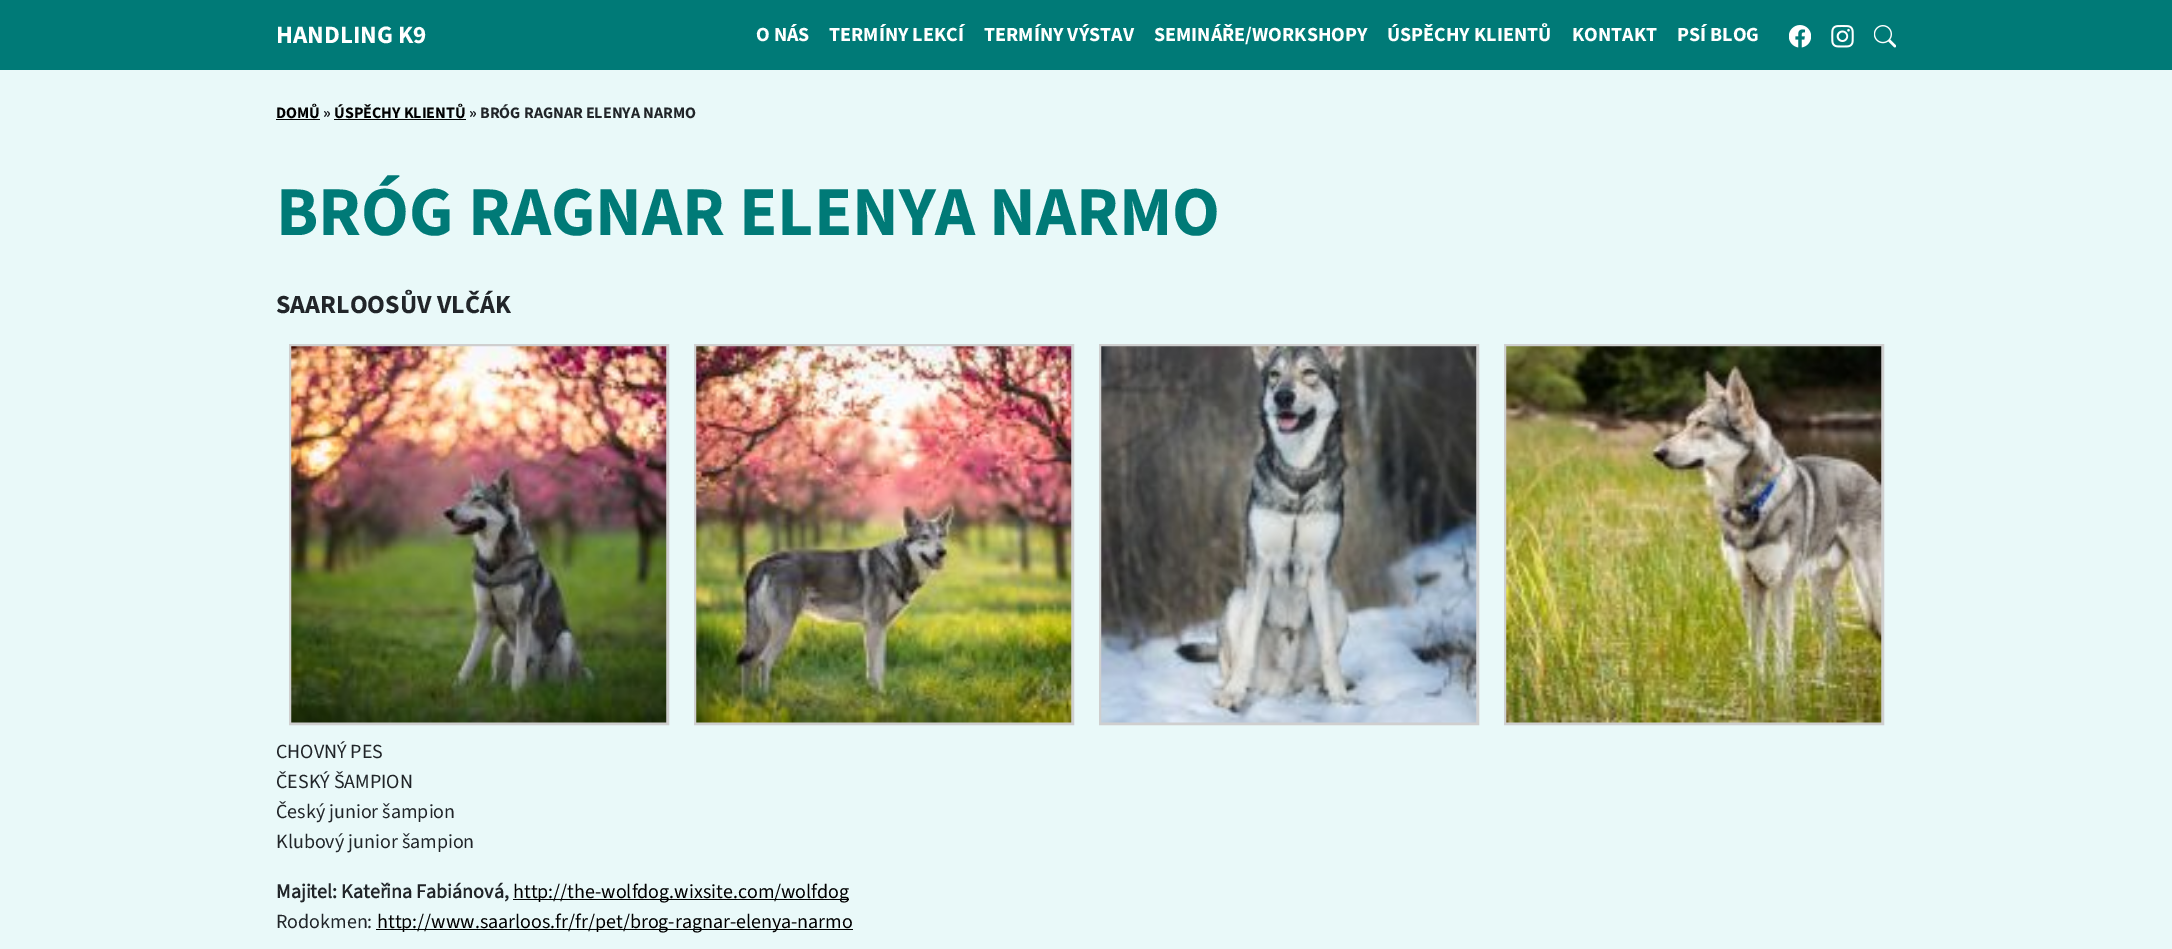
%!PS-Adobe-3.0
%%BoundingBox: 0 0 2172 949
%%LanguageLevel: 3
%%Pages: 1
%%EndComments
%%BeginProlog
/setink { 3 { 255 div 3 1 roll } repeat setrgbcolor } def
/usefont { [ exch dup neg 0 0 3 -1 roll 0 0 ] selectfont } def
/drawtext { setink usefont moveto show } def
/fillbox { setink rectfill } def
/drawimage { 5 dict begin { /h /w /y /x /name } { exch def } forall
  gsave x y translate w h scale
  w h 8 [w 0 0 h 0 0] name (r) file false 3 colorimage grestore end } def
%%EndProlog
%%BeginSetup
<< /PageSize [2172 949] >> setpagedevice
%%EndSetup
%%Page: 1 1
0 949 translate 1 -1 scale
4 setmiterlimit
0 0 2172 949 233 249 249 fillbox
0 0 2172 70 0 122 119 fillbox
(HANDLING K9) 276 43 /SourceSans3-Bold 25 255 255 255 drawtext
(O NÁS) 756 41 /SourceSans3-Bold 20 255 255 255 drawtext
(TERMÍNY LEKCÍ) 829 41 /SourceSans3-Bold 20 255 255 255 drawtext
(TERMÍNY VÝSTAV) 984 41 /SourceSans3-Bold 20 255 255 255 drawtext
(SEMINÁŘE/WORKSHOPY) 1154 41 /SourceSans3-Bold 20 255 255 255 drawtext
(ÚSPĚCHY KLIENTŮ) 1387 41 /SourceSans3-Bold 20 255 255 255 drawtext
(KONTAKT) 1572 41 /SourceSans3-Bold 20 255 255 255 drawtext
(PSÍ BLOG) 1677 41 /SourceSans3-Bold 20 255 255 255 drawtext
(assets/img1.rgb) 1789 25 22 23 drawimage
(assets/img2.rgb) 1831 25 23 23 drawimage
(assets/img3.rgb) 1874 25 22 23 drawimage
(DOMŮ) 276 118 /SourceSans3-Bold 16 0 0 0 drawtext
(») 323 118 /SourceSans3-Bold 16 33 37 41 drawtext
276 119 44 1 0 0 0 fillbox
334 119 132 1 0 0 0 fillbox
(ÚSPĚCHY KLIENTŮ) 334 118 /SourceSans3-Bold 16 0 0 0 drawtext
(» BRÓG RAGNAR ELENYA NARMO) 469 118 /SourceSans3-Bold 16 33 37 41 drawtext
(BRÓG RAGNAR ELENYA NARMO) 276 235 /SourceSans3-Bold 70 0 122 119 drawtext
(SAARLOOSŮV VLČÁK) 276 313 /SourceSans3-Bold 26 33 37 41 drawtext
207 207 207 setink
3 setlinewidth
290.5 345.5 377 378 rectstroke
(assets/img4.rgb) 291 346 376 377 drawimage
695.5 345.5 377 378 rectstroke
(assets/img5.rgb) 696 346 376 377 drawimage
1100.5 345.5 377 378 rectstroke
(assets/img6.rgb) 1101 346 376 377 drawimage
1505.5 345.5 377 378 rectstroke
(assets/img7.rgb) 1506 346 376 377 drawimage
(CHOVNÝ PES) 276 758 /SourceSans3-Regular 20 33 37 41 drawtext
(ČESKÝ ŠAMPION) 276 788 /SourceSans3-Regular 20 33 37 41 drawtext
(Český junior šampion) 276 818 /SourceSans3-Regular 20 33 37 41 drawtext
(Klubový junior šampion) 276 848 /SourceSans3-Regular 20 33 37 41 drawtext
(Majitel: Kateřina Fabiánová,) 276 898 /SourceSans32-Bold 20 33 37 41 drawtext
513 899 336 1 0 0 0 fillbox
(http://the-wolfdog.wixsite.com/wolfdog) 513 898 /SourceSans3-Regular 20 0 0 0 drawtext
(Rodokmen:) 276 928 /SourceSans3-Regular 20 33 37 41 drawtext
376 929 477 1 0 0 0 fillbox
(http://www.saarloos.fr/fr/pet/brog-ragnar-elenya-narmo) 377 928 /SourceSans3-Regular 20 0 0 0 drawtext
showpage
%%EOF
